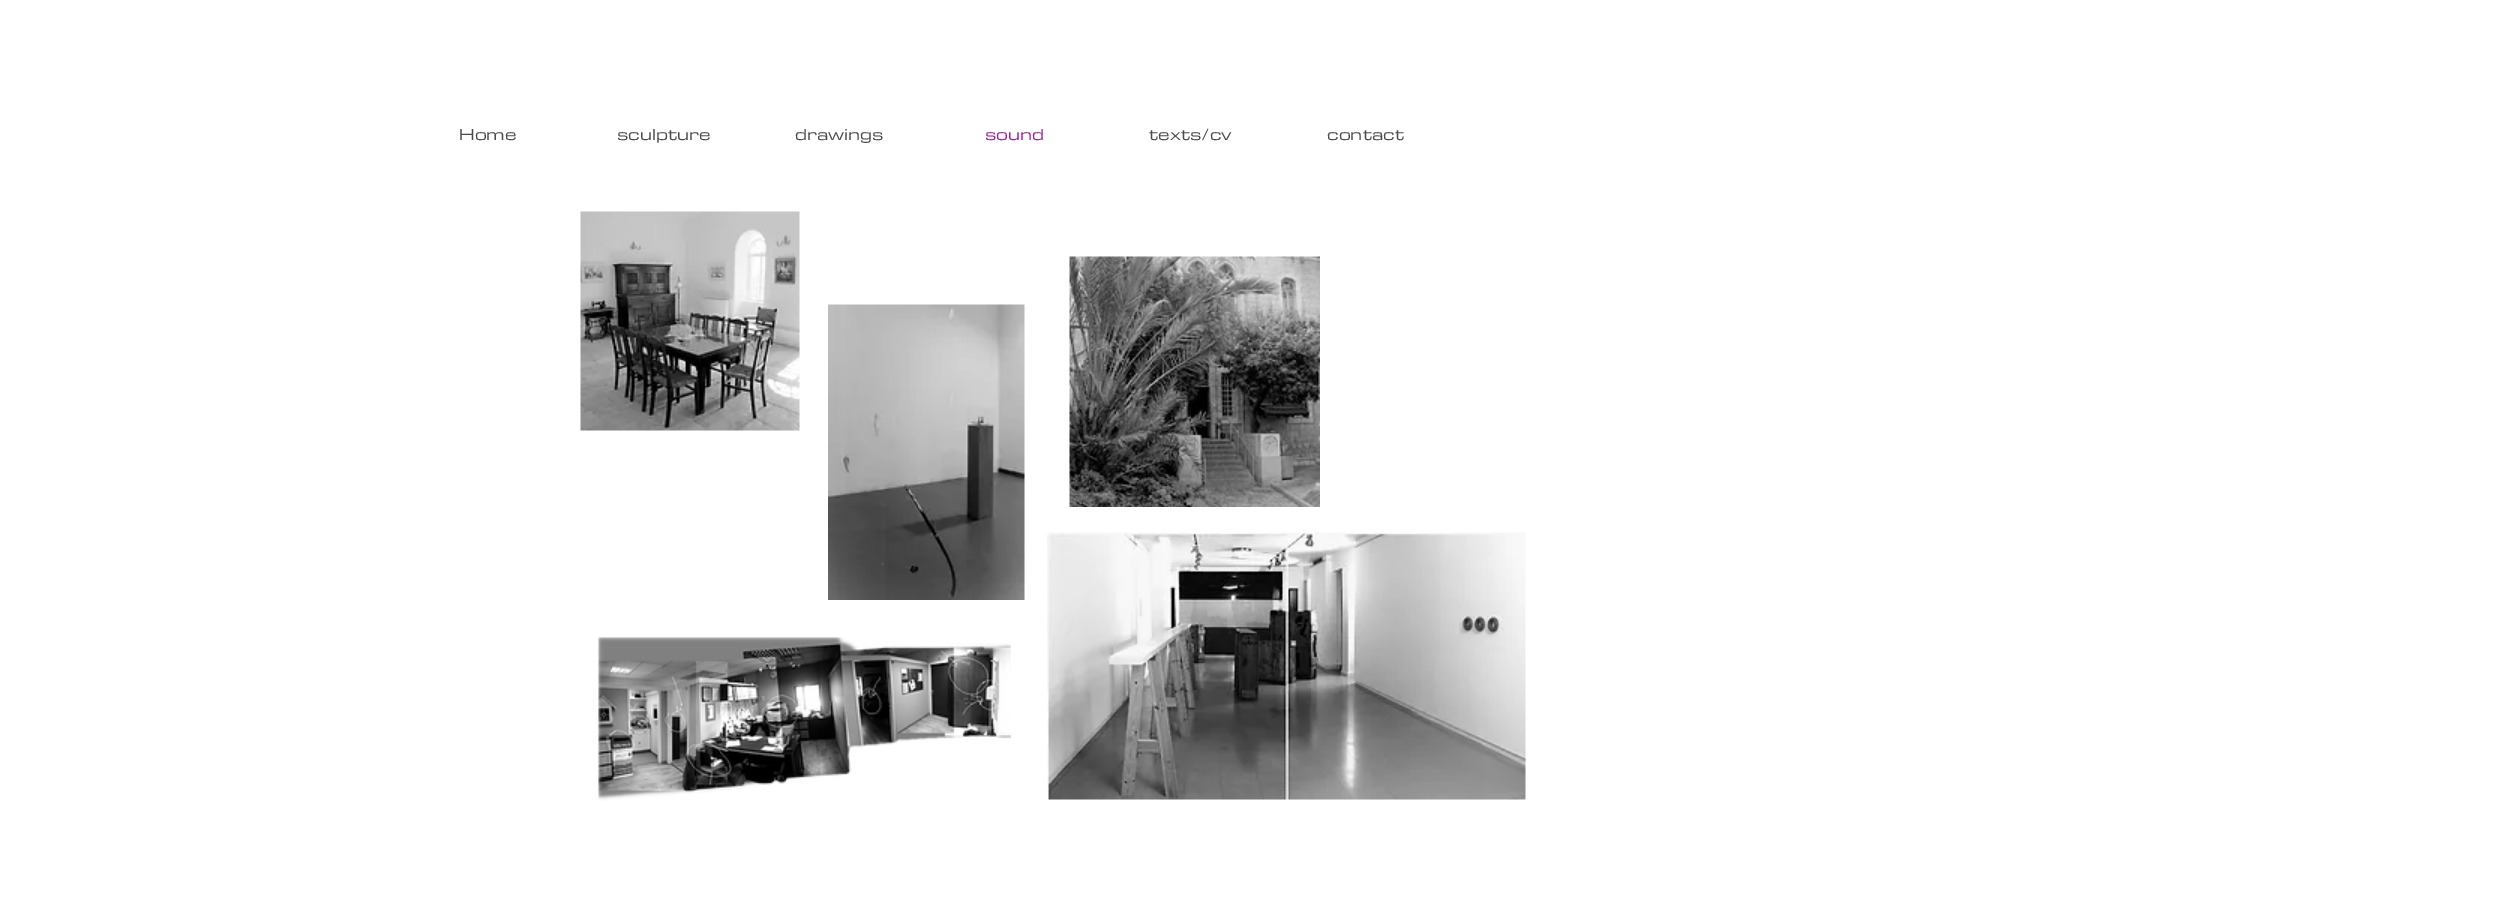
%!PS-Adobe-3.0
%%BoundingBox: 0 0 2505 901
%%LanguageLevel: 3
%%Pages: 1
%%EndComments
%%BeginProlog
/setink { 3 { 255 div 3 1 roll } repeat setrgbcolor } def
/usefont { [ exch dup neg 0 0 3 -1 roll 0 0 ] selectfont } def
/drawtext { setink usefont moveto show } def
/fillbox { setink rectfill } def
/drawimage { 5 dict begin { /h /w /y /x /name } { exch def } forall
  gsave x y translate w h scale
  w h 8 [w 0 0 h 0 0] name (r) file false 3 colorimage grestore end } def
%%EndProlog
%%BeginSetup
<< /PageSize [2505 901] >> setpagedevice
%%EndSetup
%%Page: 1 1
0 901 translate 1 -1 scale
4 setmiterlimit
0 0 2505 901 255 255 255 fillbox
(Home) 459 140 /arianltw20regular-Regular 19.5 74 74 74 drawtext
(sculpture) 617 140 /arianltw20regular-Regular 19.5 74 74 74 drawtext
(drawings) 795 140 /arianltw20regular-Regular 19.5 74 74 74 drawtext
(sound) 985 140 /arianltw20regular-Regular 19.5 163 26 163 drawtext
(texts/cv) 1149 140 /arianltw20regular-Regular 19.5 74 74 74 drawtext
(contact) 1327 140 /arianltw20regular-Regular 19.5 74 74 74 drawtext
(assets/img1.rgb) 580 211 220 220 drawimage
(assets/img2.rgb) 828 304 197 296 drawimage
(assets/img3.rgb) 1069 256 251 251 drawimage
(assets/img4.rgb) 598 637 413 164 drawimage
(assets/img5.rgb) 1047 532 479 268 drawimage
showpage
%%EOF
